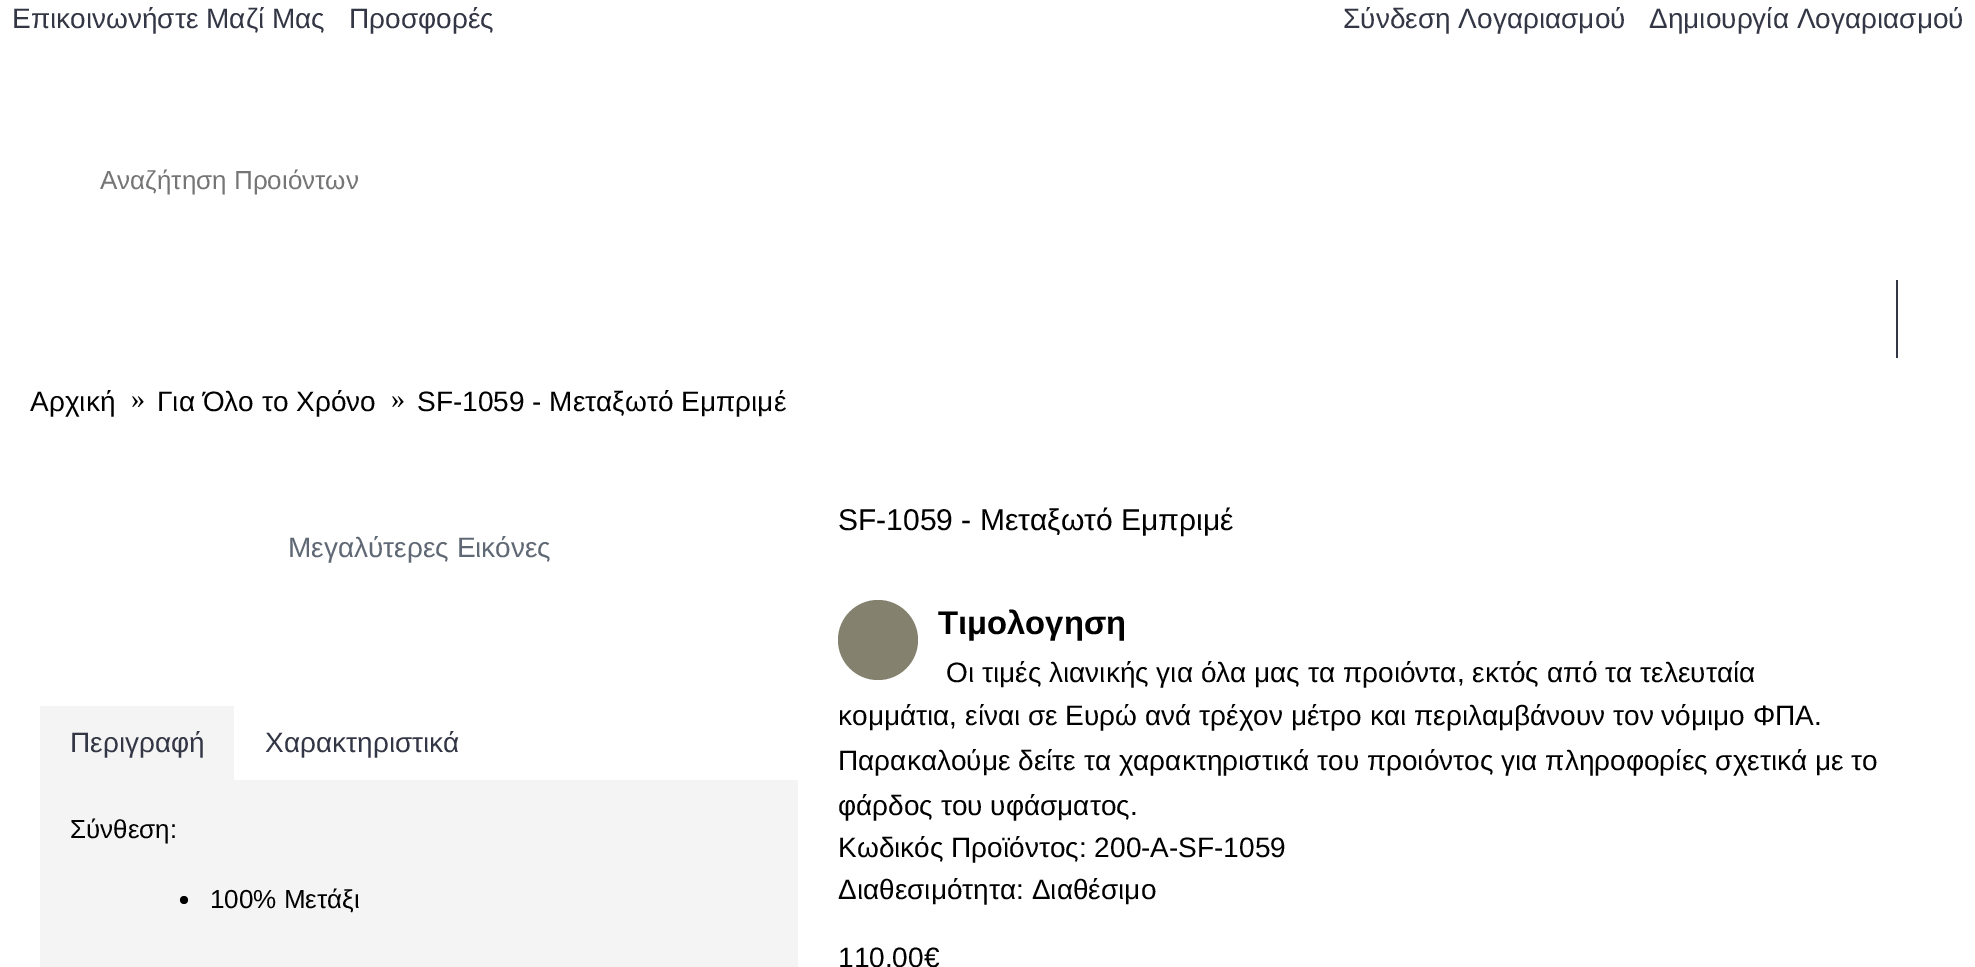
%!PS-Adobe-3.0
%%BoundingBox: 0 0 1975 967
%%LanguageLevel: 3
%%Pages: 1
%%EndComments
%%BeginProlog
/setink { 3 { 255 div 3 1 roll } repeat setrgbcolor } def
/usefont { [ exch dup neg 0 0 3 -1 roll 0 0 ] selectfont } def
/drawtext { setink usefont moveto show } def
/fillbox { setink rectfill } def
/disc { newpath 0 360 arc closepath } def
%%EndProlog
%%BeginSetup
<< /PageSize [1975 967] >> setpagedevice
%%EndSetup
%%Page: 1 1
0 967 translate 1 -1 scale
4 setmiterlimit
0 0 1975 967 255 255 255 fillbox
(Επικοινωνήστε Μαζί Μας) 12 28 /LiberationSans-Regular 28 51 55 69 drawtext
(Προσφορές) 349 28 /LiberationSans-Regular 28 51 55 69 drawtext
(Σύνδεση Λογαριασμού) 1343 28 /LiberationSans-Regular 28 51 55 69 drawtext
(Δημιουργία Λογαριασμού) 1649 28 /LiberationSans-Regular 28 51 55 69 drawtext
(Αναζήτηση Προιόντων) 100 189 /LiberationSans-Regular 26 117 117 117 drawtext
1896 280 2 78 51 55 69 fillbox
(Αρχική) 30 411 /LiberationSans-Regular 28 0 0 0 drawtext
(») 131 408 /LiberationSerif-Regular 28 0 0 0 drawtext
(Για Όλο το Χρόνο) 157 411 /LiberationSans-Regular 28 0 0 0 drawtext
(») 391 408 /LiberationSerif-Regular 28 0 0 0 drawtext
(SF-1059 - Μεταξωτό Εμπριμέ) 417 411 /LiberationSans-Regular 28 0 0 0 drawtext
(Μεγαλύτερες Εικόνες) 288 557 /LiberationSans-Regular 28 95 104 116 drawtext
40 706 194 74 244 244 244 fillbox
(Περιγραφή) 70 752 /LiberationSans-Regular 28 51 55 69 drawtext
(Χαρακτηριστικά) 265 752 /LiberationSans-Regular 28 51 55 69 drawtext
40 780 758 187 244 244 244 fillbox
(Σύνθεση:) 70 838 /LiberationSans-Regular 26 0 0 0 drawtext
184 900 4 disc fill
(100% Μετάξι) 210 908 /LiberationSans-Regular 26 0 0 0 drawtext
(SF-1059 - Μεταξωτό Εμπριμέ) 838 530 /LiberationSans-Regular 30 0 0 0 drawtext
132 130 111 setink
878 640 40 disc fill
(Τιμολογηση) 938 634 /LiberationSans-Bold 32.75 0 0 0 drawtext
(Οι τιμές λιανικής για όλα μας τα προιόντα, εκτός από τα τελευταία) 946 682 /LiberationSans-Regular 28 0 0 0 drawtext
(κομμάτια, είναι σε Ευρώ ανά τρέχον μέτρο και περιλαμβάνουν τον νόμιμο ΦΠΑ.) 838 725 /LiberationSans-Regular 28 0 0 0 drawtext
(Παρακαλούμε δείτε τα χαρακτηριστικά του προιόντος για πληροφορίες σχετικά με το) 838 770 /LiberationSans-Regular 28 0 0 0 drawtext
(φάρδος του υφάσματος.) 838 815 /LiberationSans-Regular 28 0 0 0 drawtext
(Κωδικός Προϊόντος: 200-A-SF-1059) 838 857 /LiberationSans-Regular 28 0 0 0 drawtext
(Διαθεσιμότητα: Διαθέσιμο) 838 899 /LiberationSans-Regular 28 0 0 0 drawtext
(110,00€) 838 967 /LiberationSans-Regular 28 0 0 0 drawtext
showpage
%%EOF
